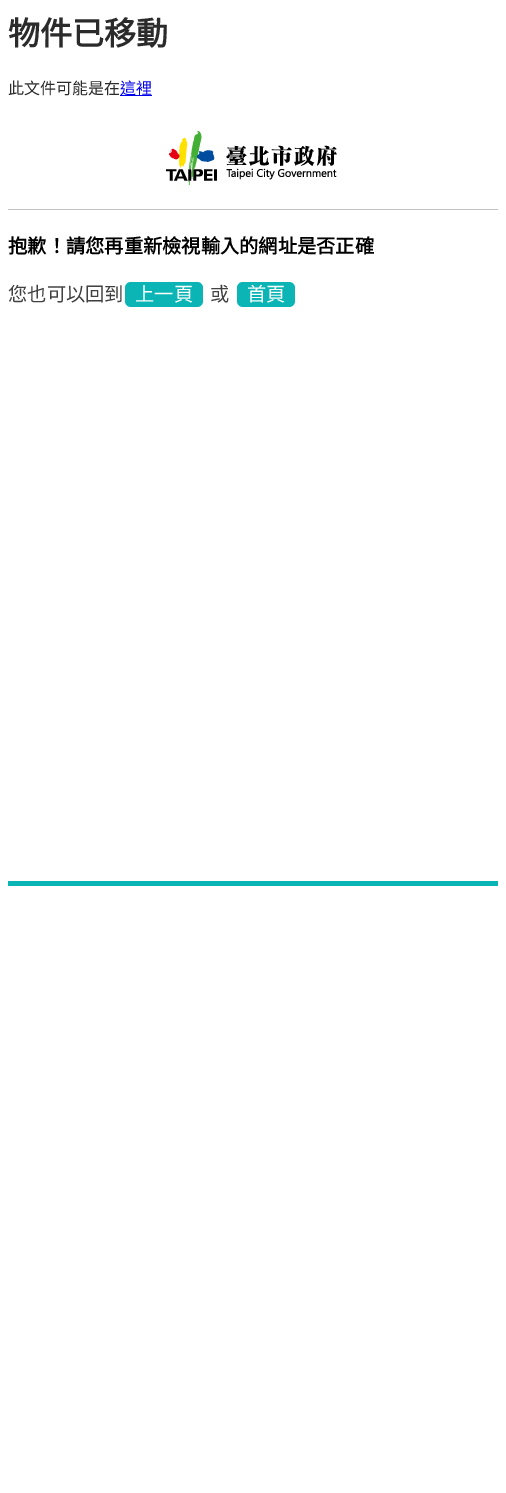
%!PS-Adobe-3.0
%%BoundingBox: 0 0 506 1493
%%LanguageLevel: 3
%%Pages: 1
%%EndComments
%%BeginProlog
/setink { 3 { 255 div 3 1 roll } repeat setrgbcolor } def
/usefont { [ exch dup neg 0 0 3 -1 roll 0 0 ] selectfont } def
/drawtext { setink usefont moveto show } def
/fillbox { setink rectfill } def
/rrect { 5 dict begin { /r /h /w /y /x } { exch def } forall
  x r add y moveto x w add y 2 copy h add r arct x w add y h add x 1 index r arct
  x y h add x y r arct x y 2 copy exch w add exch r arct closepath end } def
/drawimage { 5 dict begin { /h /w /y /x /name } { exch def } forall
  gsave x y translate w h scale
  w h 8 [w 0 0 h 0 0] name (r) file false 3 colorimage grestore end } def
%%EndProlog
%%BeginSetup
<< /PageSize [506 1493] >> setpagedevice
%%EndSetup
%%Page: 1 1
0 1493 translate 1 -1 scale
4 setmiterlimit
0 0 506 1493 255 255 255 fillbox
(物件已移動) 8 45 /NotoSansCJKTC-Bold 32 43 43 43 drawtext
(此文件可能是在) 8 94 /NotoSansCJKTC-Regular 16 43 43 43 drawtext
120 95 32 1 0 0 238 fillbox
(這裡) 120 94 /NotoSansCJKTC-Regular 16 0 0 238 drawtext
8 881 490 5 12 181 181 fillbox
8 209 490 1 193 193 193 fillbox
(assets/img1.rgb) 166 131 171 55 drawimage
(抱歉！請您再重新檢視輸入的網址是否正確) 8 253 /NotoSansCJKTC-Bold 19.25 0 0 0 drawtext
(您也可以回到) 8 301 /NotoSansCJKTC-Regular 19.25 65 65 65 drawtext
12 181 181 setink
125 282 78 25 6 rrect fill
(上一頁) 135 301 /NotoSansCJKTC-Regular 19.25 255 255 255 drawtext
(或) 210 301 /NotoSansCJKTC-Regular 19.25 65 65 65 drawtext
12 181 181 setink
237 282 58 25 6 rrect fill
(首頁) 247 301 /NotoSansCJKTC-Regular 19.25 255 255 255 drawtext
showpage
%%EOF
